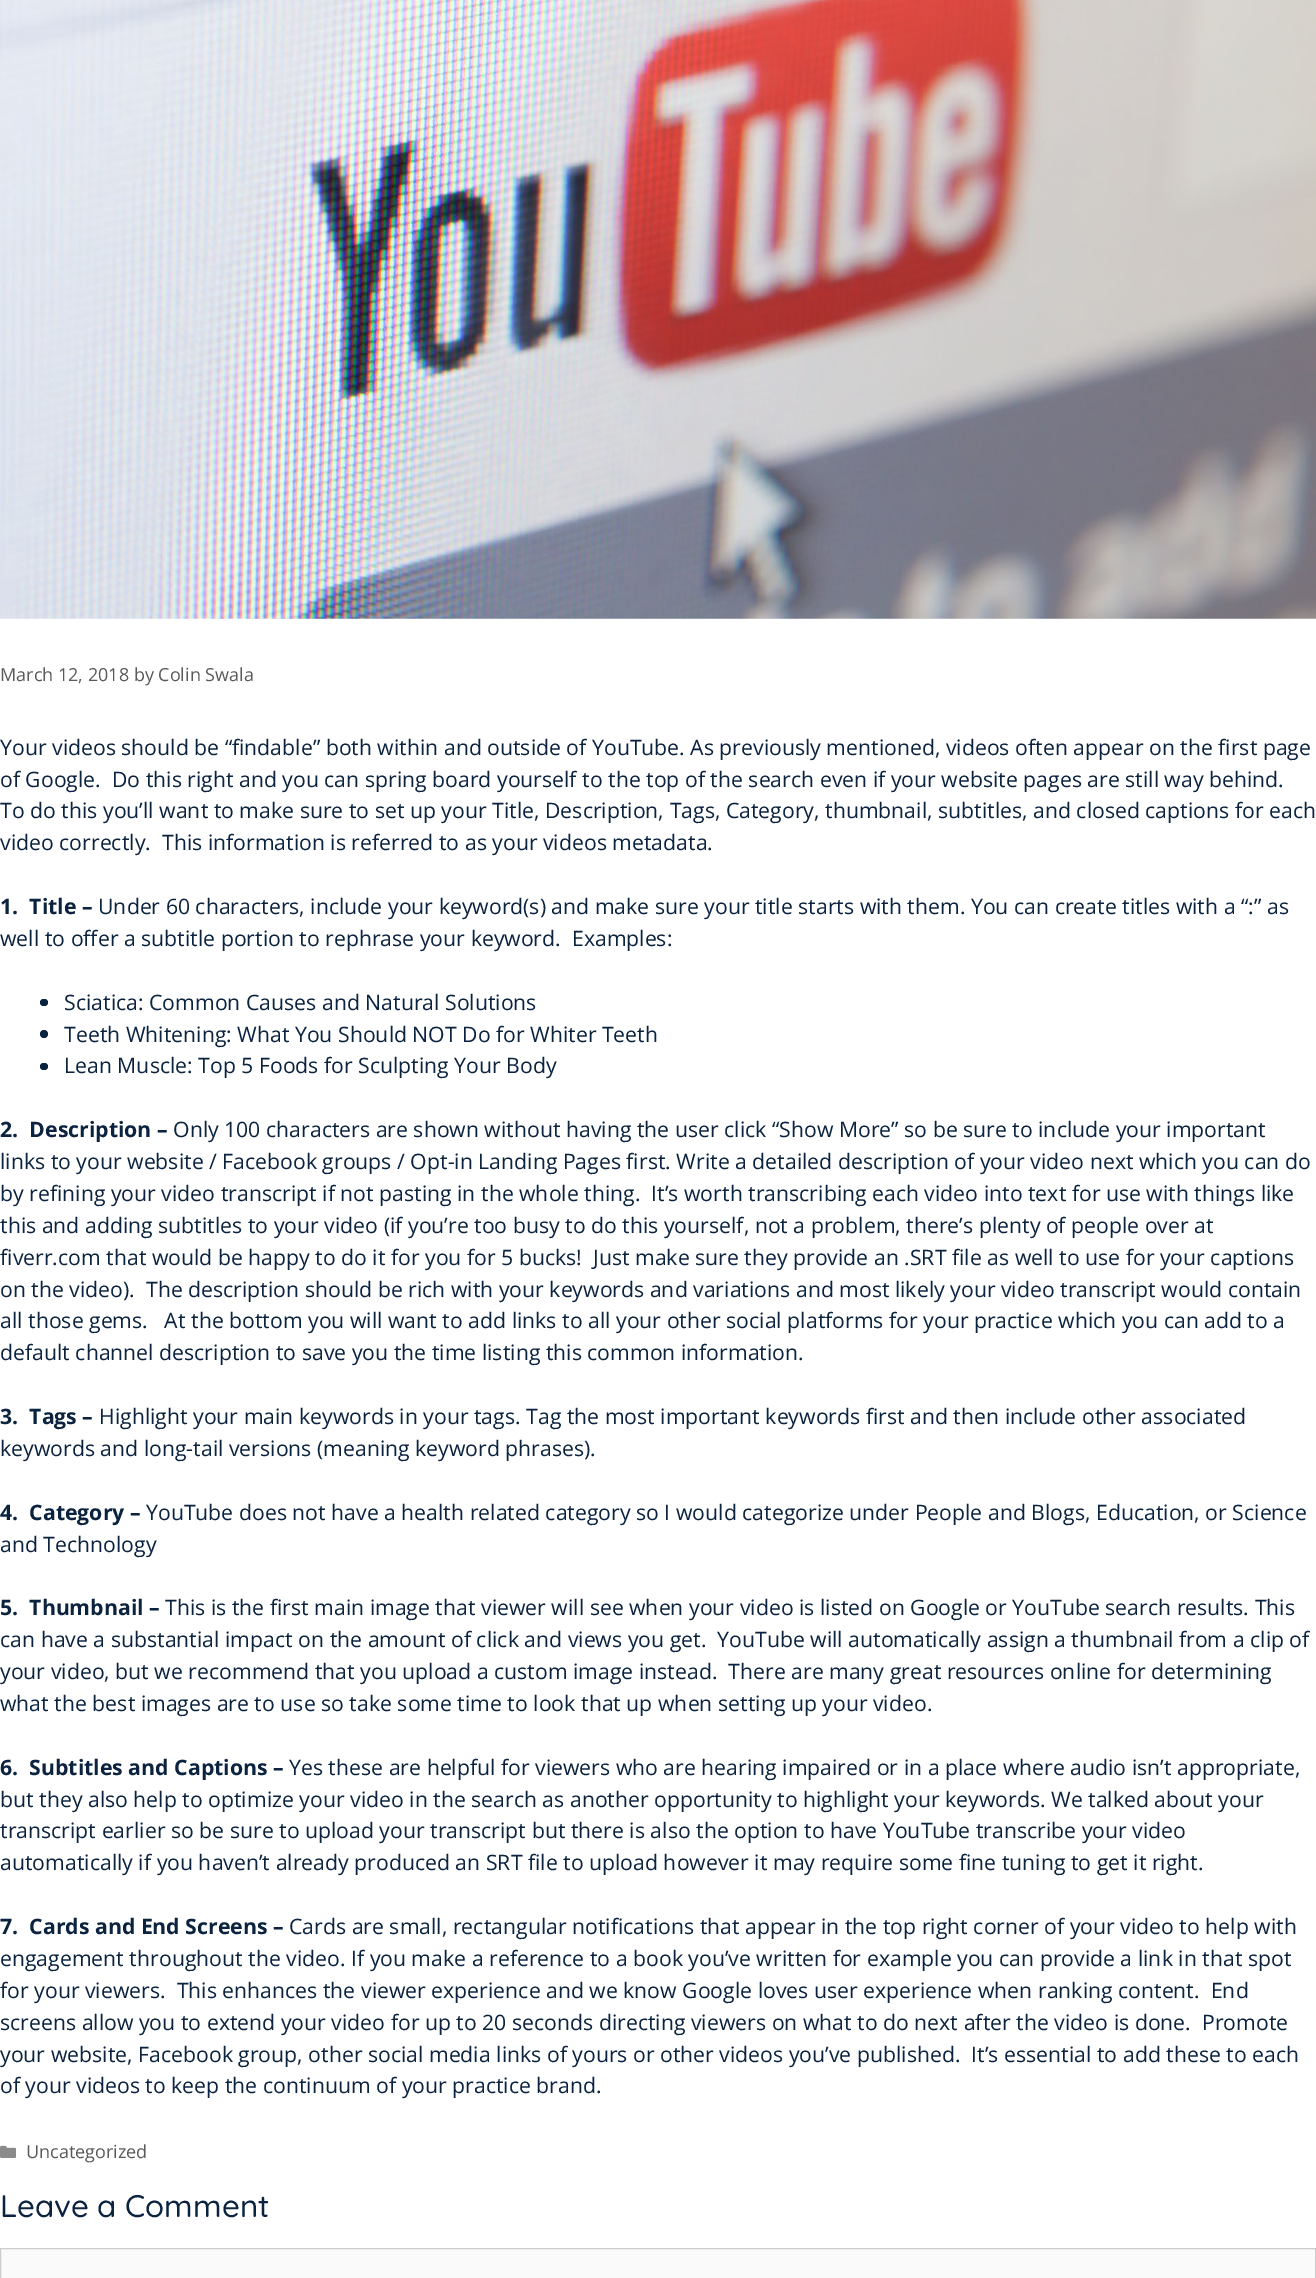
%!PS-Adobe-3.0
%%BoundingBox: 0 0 1316 2278
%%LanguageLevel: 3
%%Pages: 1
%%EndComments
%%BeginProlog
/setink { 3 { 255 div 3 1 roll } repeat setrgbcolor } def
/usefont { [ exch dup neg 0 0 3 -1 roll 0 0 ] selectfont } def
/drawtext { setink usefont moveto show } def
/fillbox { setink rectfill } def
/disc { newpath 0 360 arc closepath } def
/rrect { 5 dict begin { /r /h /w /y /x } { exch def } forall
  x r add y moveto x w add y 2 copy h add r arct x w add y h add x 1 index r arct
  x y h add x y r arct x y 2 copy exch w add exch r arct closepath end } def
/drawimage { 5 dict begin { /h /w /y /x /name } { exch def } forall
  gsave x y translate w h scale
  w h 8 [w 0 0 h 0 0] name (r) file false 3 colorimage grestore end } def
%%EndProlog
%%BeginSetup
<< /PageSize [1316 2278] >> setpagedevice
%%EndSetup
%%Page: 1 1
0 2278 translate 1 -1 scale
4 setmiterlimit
0 0 1316 2278 255 255 255 fillbox
(assets/img1.rgb) 0 0 1316 619 drawimage
(March 12, 2018 by Colin Swala) 0 681 /OpenSans-Regular 18 89 89 89 drawtext
(Your videos should be “findable” both within and outside of YouTube. As previously mentioned, videos often appear on the first page) 0 755 /OpenSans-Regular 21.25 11 35 63 drawtext
(of Google.  Do this right and you can spring board yourself to the top of the search even if your website pages are still way behind.) 0 787 /OpenSans-Regular 21.25 11 35 63 drawtext
(To do this you’ll want to make sure to set up your Title, Description, Tags, Category, thumbnail, subtitles, and closed captions for each) 0 818 /OpenSans-Regular 21.25 11 35 63 drawtext
(video correctly.  This information is referred to as your videos metadata.) 0 850 /OpenSans-Regular 21.25 11 35 63 drawtext
(1.  Title –) 0 914 /OpenSans-Bold 21.25 11 35 63 drawtext
(Under 60 characters, include your keyword\(s\) and make sure your title starts with them. You can create titles with a “:” as) 98 914 /OpenSans-Regular 21.25 11 35 63 drawtext
(well to offer a subtitle portion to rephrase your keyword.  Examples:) 0 946 /OpenSans-Regular 21.25 11 35 63 drawtext
40 999 8 7 3.5 rrect fill
(Sciatica: Common Causes and Natural Solutions) 64 1010 /OpenSans-Regular 21.25 11 35 63 drawtext
44 1034 4 disc fill
(Teeth Whitening: What You Should NOT Do for Whiter Teeth) 64 1042 /OpenSans-Regular 21.25 11 35 63 drawtext
40 1063 8 7 3.5 rrect fill
(Lean Muscle: Top 5 Foods for Sculpting Your Body) 64 1073 /OpenSans-Regular 21.25 11 35 63 drawtext
(2.  Description –) 0 1137 /OpenSans-Bold 21.25 11 35 63 drawtext
(Only 100 characters are shown without having the user click “Show More” so be sure to include your important) 173 1137 /OpenSans-Regular 21.25 11 35 63 drawtext
(links to your website / Facebook groups / Opt-in Landing Pages first. Write a detailed description of your video next which you can do) 0 1169 /OpenSans-Regular 21.25 11 35 63 drawtext
(by refining your video transcript if not pasting in the whole thing.  It’s worth transcribing each video into text for use with things like) 0 1201 /OpenSans-Regular 21.25 11 35 63 drawtext
(this and adding subtitles to your video \(if you’re too busy to do this yourself, not a problem, there’s plenty of people over at) 0 1233 /OpenSans-Regular 21.25 11 35 63 drawtext
(fiverr.com that would be happy to do it for you for 5 bucks!  Just make sure they provide an .SRT file as well to use for your captions) 0 1265 /OpenSans-Regular 21.25 11 35 63 drawtext
(on the video\).  The description should be rich with your keywords and variations and most likely your video transcript would contain) 0 1297 /OpenSans-Regular 21.25 11 35 63 drawtext
(all those gems.   At the bottom you will want to add links to all your other social platforms for your practice which you can add to a) 0 1328 /OpenSans-Regular 21.25 11 35 63 drawtext
(default channel description to save you the time listing this common information.) 0 1360 /OpenSans-Regular 21.25 11 35 63 drawtext
(3.  Tags –) 0 1424 /OpenSans-Bold 21.25 11 35 63 drawtext
(Highlight your main keywords in your tags. Tag the most important keywords first and then include other associated) 99 1424 /OpenSans-Regular 21.25 11 35 63 drawtext
(keywords and long-tail versions \(meaning keyword phrases\).) 0 1456 /OpenSans-Regular 21.25 11 35 63 drawtext
(4.  Category –) 0 1520 /OpenSans-Bold 21.25 11 35 63 drawtext
(YouTube does not have a health related category so I would categorize under People and Blogs, Education, or Science) 146 1520 /OpenSans-Regular 21.25 11 35 63 drawtext
(and Technology) 0 1552 /OpenSans-Regular 21.25 11 35 63 drawtext
(5.  Thumbnail –) 0 1615 /OpenSans-Bold 21.25 11 35 63 drawtext
(This is the first main image that viewer will see when your video is listed on Google or YouTube search results. This) 165 1615 /OpenSans-Regular 21.25 11 35 63 drawtext
(can have a substantial impact on the amount of click and views you get.  YouTube will automatically assign a thumbnail from a clip of) 0 1647 /OpenSans-Regular 21.25 11 35 63 drawtext
(your video, but we recommend that you upload a custom image instead.  There are many great resources online for determining) 0 1679 /OpenSans-Regular 21.25 11 35 63 drawtext
(what the best images are to use so take some time to look that up when setting up your video.) 0 1711 /OpenSans-Regular 21.25 11 35 63 drawtext
(6.  Subtitles and Captions –) 0 1775 /OpenSans-Bold 21.25 11 35 63 drawtext
(Yes these are helpful for viewers who are hearing impaired or in a place where audio isn’t appropriate,) 289 1775 /OpenSans-Regular 21.25 11 35 63 drawtext
(but they also help to optimize your video in the search as another opportunity to highlight your keywords. We talked about your) 0 1807 /OpenSans-Regular 21.25 11 35 63 drawtext
(transcript earlier so be sure to upload your transcript but there is also the option to have YouTube transcribe your video) 0 1838 /OpenSans-Regular 21.25 11 35 63 drawtext
(automatically if you haven’t already produced an SRT file to upload however it may require some fine tuning to get it right.) 0 1870 /OpenSans-Regular 21.25 11 35 63 drawtext
(7.  Cards and End Screens –) 0 1934 /OpenSans-Bold 21.25 11 35 63 drawtext
(Cards are small, rectangular notifications that appear in the top right corner of your video to help with) 289 1934 /OpenSans-Regular 21.25 11 35 63 drawtext
(engagement throughout the video. If you make a reference to a book you’ve written for example you can provide a link in that spot) 0 1966 /OpenSans-Regular 21.25 11 35 63 drawtext
(for your viewers.  This enhances the viewer experience and we know Google loves user experience when ranking content.  End) 0 1998 /OpenSans-Regular 21.25 11 35 63 drawtext
(screens allow you to extend your video for up to 20 seconds directing viewers on what to do next after the video is done.  Promote) 0 2030 /OpenSans-Regular 21.25 11 35 63 drawtext
(your website, Facebook group, other social media links of yours or other videos you’ve published.  It’s essential to add these to each) 0 2062 /OpenSans-Regular 21.25 11 35 63 drawtext
(of your videos to keep the continuum of your practice brand.) 0 2093 /OpenSans-Regular 21.25 11 35 63 drawtext
(assets/img2.rgb) 0 2145 16 13 drawimage
(Uncategorized) 26 2158 /OpenSans-Regular 18 89 89 89 drawtext
(Leave a Comment) 0 2217 /Quicksand-Medium 31.25 11 35 63 drawtext
250 250 250 setink
0.5 2248.5 moveto 1315.5 2248.5 lineto 1315.5 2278.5 lineto 0.5 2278.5 lineto closepath gsave fill grestore
204 204 204 setink
stroke
showpage
%%EOF
